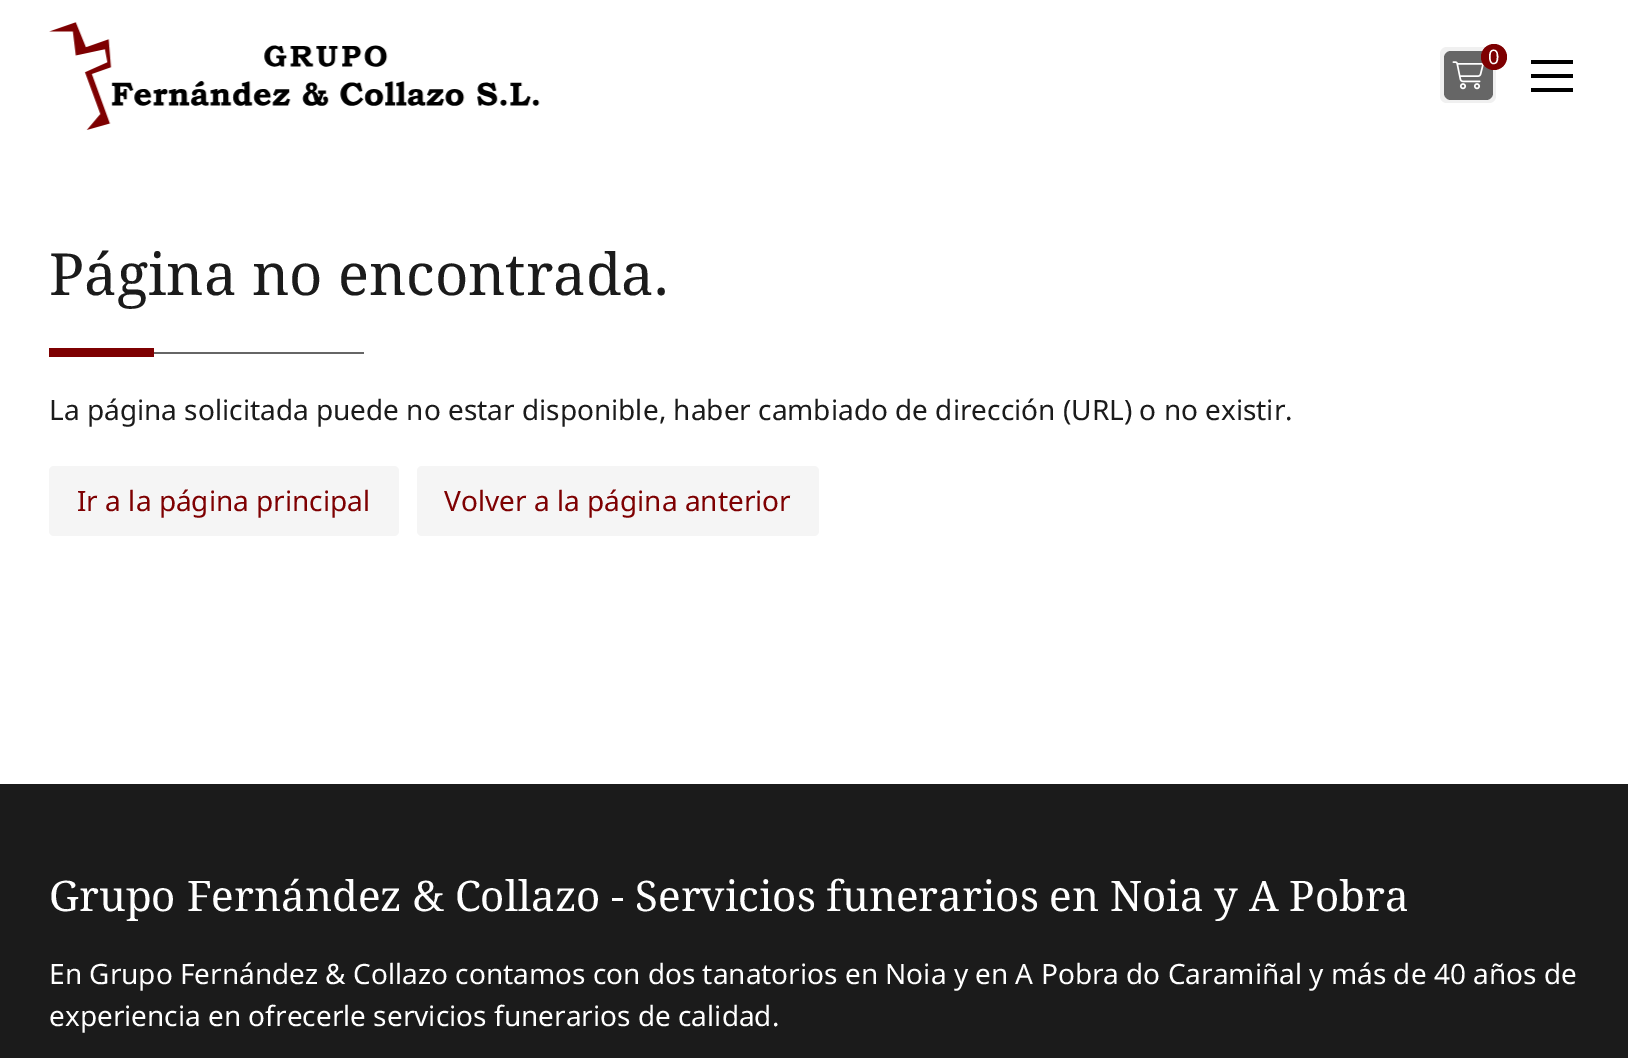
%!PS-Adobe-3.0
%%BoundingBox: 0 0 1628 1058
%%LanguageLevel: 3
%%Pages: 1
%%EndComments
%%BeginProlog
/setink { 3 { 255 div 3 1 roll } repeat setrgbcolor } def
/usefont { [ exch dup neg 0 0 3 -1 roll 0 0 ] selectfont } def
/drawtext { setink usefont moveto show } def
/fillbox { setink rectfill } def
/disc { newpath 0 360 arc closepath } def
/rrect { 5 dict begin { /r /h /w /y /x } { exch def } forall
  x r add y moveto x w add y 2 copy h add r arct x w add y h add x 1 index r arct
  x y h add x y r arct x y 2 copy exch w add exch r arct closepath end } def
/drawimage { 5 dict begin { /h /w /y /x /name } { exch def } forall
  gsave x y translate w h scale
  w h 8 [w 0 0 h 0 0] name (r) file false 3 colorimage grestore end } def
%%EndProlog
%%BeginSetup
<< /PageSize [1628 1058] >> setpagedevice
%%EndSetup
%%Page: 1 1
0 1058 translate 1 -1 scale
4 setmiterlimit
0 0 1628 1058 255 255 255 fillbox
(assets/img1.rgb) 49 22 491 108 drawimage
240 240 240 setink
1440 47 56 56 7 rrect fill
102 102 102 setink
1444 51 49 49 7 rrect fill
(assets/img2.rgb) 1452 61 32 29 drawimage
126 0 1 setink
1494 57 13 disc fill
(0) 1488 64 /NotoSans-Regular 20 255 255 255 drawtext
1531 60 42 4 0 0 0 fillbox
1531 74 42 4 0 0 0 fillbox
1531 88 42 4 0 0 0 fillbox
(Página no encontrada.) 49 295 /NotoSerif-Regular 58 27 27 27 drawtext
49 348 105 9 126 0 1 fillbox
154 352 210 2 102 102 102 fillbox
(La página solicitada puede no estar disponible, haber cambiado de dirección \(URL\) o no existir.) 49 420 /NotoSans-Regular 28 27 27 27 drawtext
245 245 245 setink
49 466 350 70 5 rrect fill
(Ir a la página principal) 77 511 /NotoSans-Regular 28 126 0 1 drawtext
245 245 245 setink
417 466 402 70 5 rrect fill
(Volver a la página anterior) 444 511 /NotoSans-Regular 28 126 0 1 drawtext
0 784 1628 274 27 27 27 fillbox
/NotoSerif-Regular 42.1 usefont
255 255 255 setink
49 911 moveto -0.1 0 32 (Grupo Fernández & Collazo - Servicios funerarios en Noia y A Pobra) widthshow
(En Grupo Fernández & Collazo contamos con dos tanatorios en Noia y en A Pobra do Caramiñal y más de 40 años de) 49 984 /NotoSans-Regular 28 255 255 255 drawtext
(experiencia en ofrecerle servicios funerarios de calidad.) 49 1026 /NotoSans-Regular 28 255 255 255 drawtext
showpage
%%EOF
